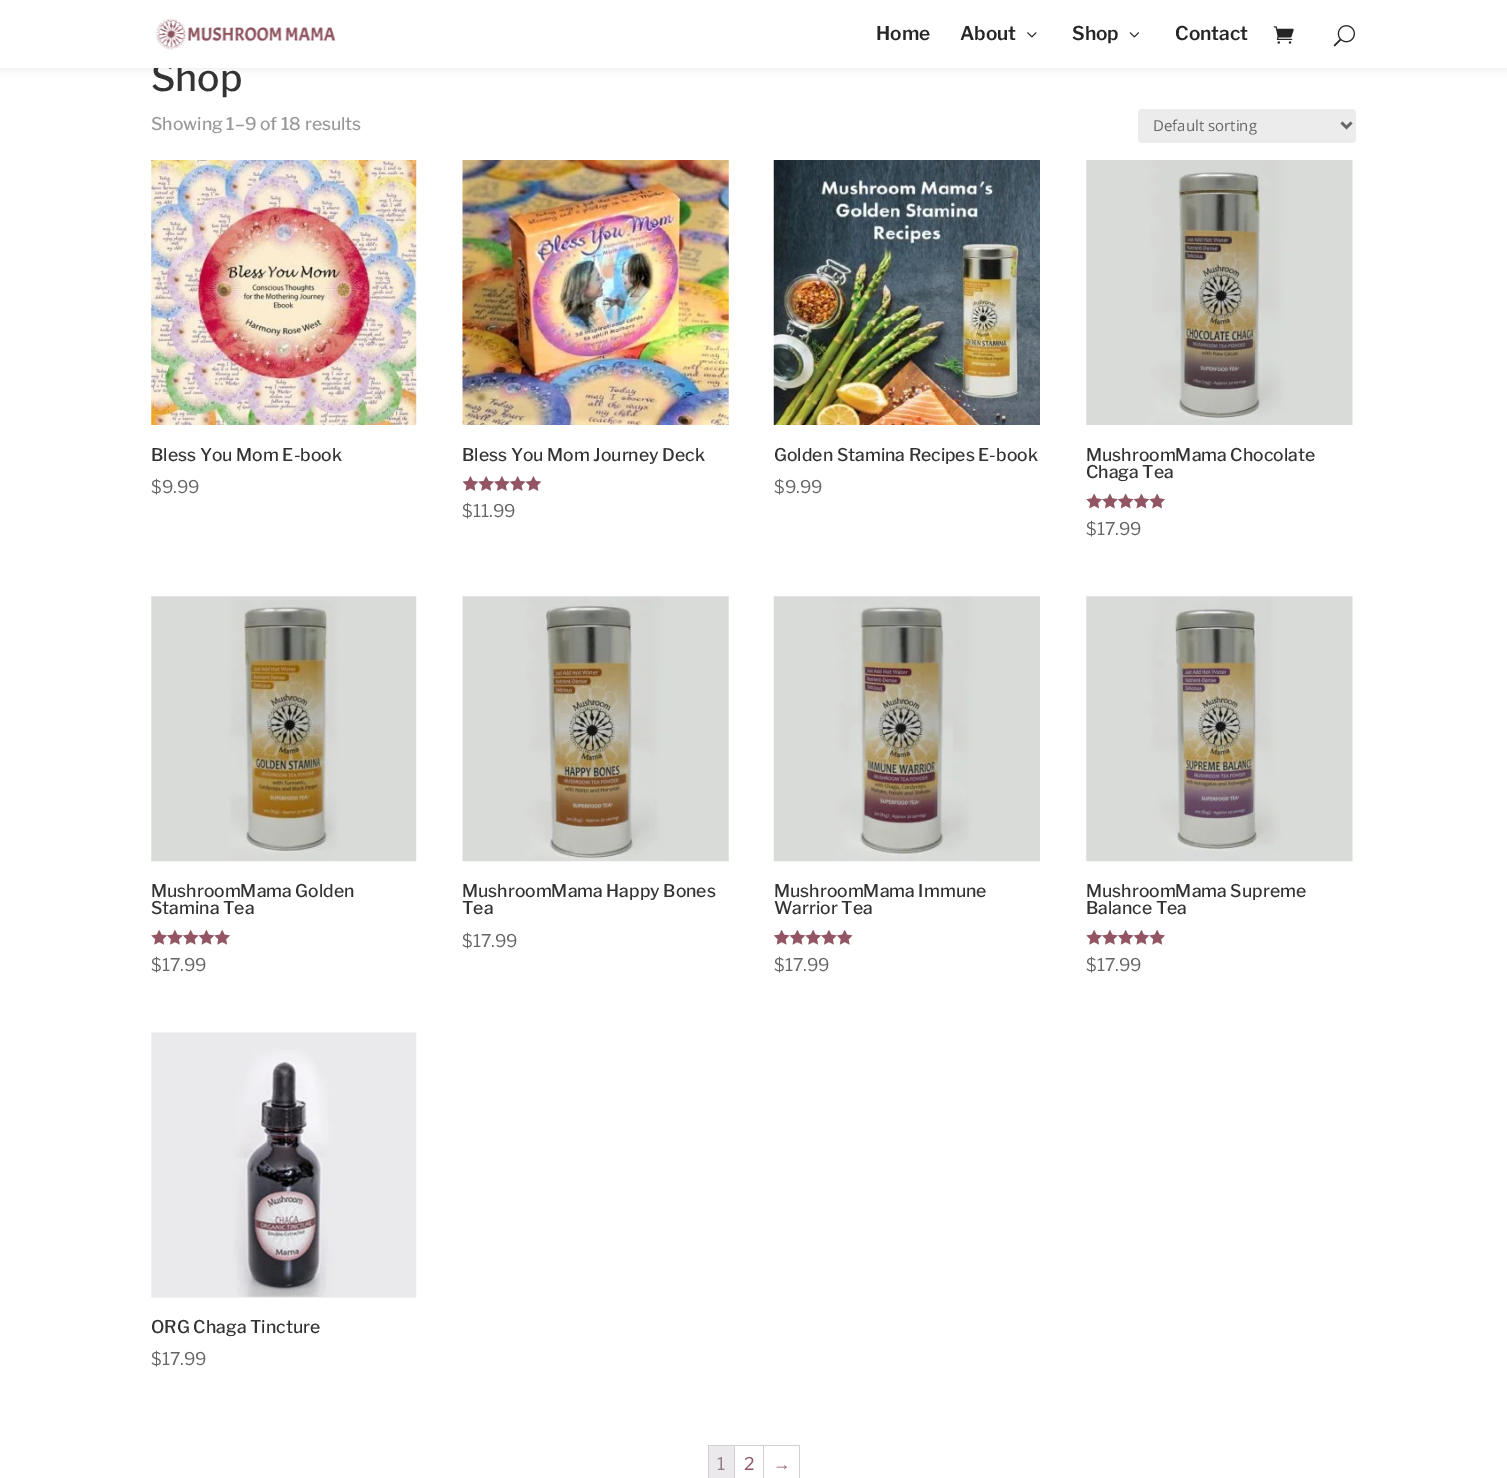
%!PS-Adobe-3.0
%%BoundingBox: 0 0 1507 1478
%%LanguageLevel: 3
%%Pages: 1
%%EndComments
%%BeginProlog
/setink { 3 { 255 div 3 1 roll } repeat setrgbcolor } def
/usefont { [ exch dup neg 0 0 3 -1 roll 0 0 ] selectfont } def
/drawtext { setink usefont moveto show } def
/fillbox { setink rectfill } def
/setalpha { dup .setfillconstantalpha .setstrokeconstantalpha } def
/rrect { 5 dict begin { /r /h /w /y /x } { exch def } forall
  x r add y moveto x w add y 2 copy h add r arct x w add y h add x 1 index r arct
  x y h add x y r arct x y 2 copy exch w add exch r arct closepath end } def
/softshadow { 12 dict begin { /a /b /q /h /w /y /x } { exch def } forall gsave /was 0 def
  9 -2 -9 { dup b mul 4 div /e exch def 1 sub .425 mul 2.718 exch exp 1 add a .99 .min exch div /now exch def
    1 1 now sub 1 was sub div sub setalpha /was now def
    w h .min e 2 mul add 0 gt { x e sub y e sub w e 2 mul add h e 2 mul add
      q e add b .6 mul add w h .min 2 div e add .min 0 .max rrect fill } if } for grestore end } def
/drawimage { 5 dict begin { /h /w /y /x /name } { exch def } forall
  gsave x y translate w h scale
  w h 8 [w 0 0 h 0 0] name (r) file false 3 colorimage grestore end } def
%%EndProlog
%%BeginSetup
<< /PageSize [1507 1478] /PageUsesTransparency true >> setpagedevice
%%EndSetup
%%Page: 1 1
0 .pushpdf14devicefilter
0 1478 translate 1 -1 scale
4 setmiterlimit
0 0 1507 1478 255 255 255 fillbox
0 0 0 setink
0 0 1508 68 0 4.5 0.1 softshadow
(Shop) 151 91 /LibreFranklin-Medium 37.5 51 51 51 drawtext
0 0 1507 68 255 255 255 fillbox
(assets/img1.rgb) 155 18 181 32 drawimage
(Home) 876 40 /LibreFranklin-SemiBold 19 38 38 38 drawtext
(About) 960 40 /LibreFranklin-SemiBold 19 38 38 38 drawtext
(assets/img2.rgb) 1027 32 10 6 drawimage
(Shop) 1072 40 /LibreFranklin-SemiBold 19 38 38 38 drawtext
(assets/img3.rgb) 1129 32 10 6 drawimage
(Contact) 1175 40 /LibreFranklin-SemiBold 19 38 38 38 drawtext
(assets/img4.rgb) 1273 26 21 18 drawimage
(assets/img5.rgb) 1333 25 22 22 drawimage
(Showing 1–9 of 18 results) 151 130 /LibreFranklin-Medium 17.5 153 153 153 drawtext
236 236 236 setink
1138 109 218 34 4 rrect fill
102 102 102 setink
2.5 setlinewidth
1341.5 122.5 moveto 1346.5 127.5 lineto 1351.5 122.5 lineto stroke
(Default sorting) 1153 131 /OpenSans-Regular 15 102 102 102 drawtext
(assets/img6.rgb) 151 160 266 265 drawimage
(Bless You Mom E-book) 151 461 /LibreFranklin-Medium 17.5 51 51 51 drawtext
($9.99) 151 493 /LibreFranklin-Regular 17.5 102 102 102 drawtext
(assets/img7.rgb) 462 160 267 265 drawimage
(Bless You Mom Journey Deck) 462 461 /LibreFranklin-Medium 17.5 51 51 51 drawtext
(assets/img8.rgb) 463 476 78 15 drawimage
(assets/img9.rgb) 463 476 79 15 drawimage
($11.99) 462 517 /LibreFranklin-Regular 17.5 102 102 102 drawtext
(assets/img10.rgb) 773 160 267 265 drawimage
(Golden Stamina Recipes E-book) 774 461 /LibreFranklin-Medium 17.5 51 51 51 drawtext
($9.99) 774 493 /LibreFranklin-Regular 17.5 102 102 102 drawtext
(assets/img11.rgb) 1086 160 267 265 drawimage
(MushroomMama Chocolate) 1086 461 /LibreFranklin-Medium 17.5 51 51 51 drawtext
(Chaga Tea) 1086 478 /LibreFranklin-Medium 17.5 51 51 51 drawtext
(assets/img12.rgb) 1086 494 79 15 drawimage
(assets/img13.rgb) 1086 494 79 15 drawimage
($17.99) 1086 535 /LibreFranklin-Regular 17.5 102 102 102 drawtext
(assets/img14.rgb) 151 596 266 266 drawimage
(MushroomMama Golden) 151 897 /LibreFranklin-Medium 17.5 51 51 51 drawtext
(Stamina Tea) 151 914 /LibreFranklin-Medium 17.5 51 51 51 drawtext
(assets/img15.rgb) 151 930 79 15 drawimage
(assets/img16.rgb) 151 930 79 15 drawimage
($17.99) 151 971 /LibreFranklin-Regular 17.5 102 102 102 drawtext
(assets/img17.rgb) 462 596 267 266 drawimage
(MushroomMama Happy Bones) 462 897 /LibreFranklin-Medium 17.5 51 51 51 drawtext
(Tea) 462 914 /LibreFranklin-Medium 17.5 51 51 51 drawtext
($17.99) 462 947 /LibreFranklin-Regular 17.5 102 102 102 drawtext
(assets/img18.rgb) 773 596 267 266 drawimage
(MushroomMama Immune) 774 897 /LibreFranklin-Medium 17.5 51 51 51 drawtext
(Warrior Tea) 774 914 /LibreFranklin-Medium 17.5 51 51 51 drawtext
(assets/img19.rgb) 774 930 79 15 drawimage
(assets/img20.rgb) 774 930 79 15 drawimage
($17.99) 774 971 /LibreFranklin-Regular 17.5 102 102 102 drawtext
(assets/img21.rgb) 1086 596 267 266 drawimage
(MushroomMama Supreme) 1086 897 /LibreFranklin-Medium 17.5 51 51 51 drawtext
(Balance Tea) 1086 914 /LibreFranklin-Medium 17.5 51 51 51 drawtext
(assets/img15.rgb) 1086 930 79 15 drawimage
(assets/img16.rgb) 1086 930 79 15 drawimage
($17.99) 1086 971 /LibreFranklin-Regular 17.5 102 102 102 drawtext
(assets/img22.rgb) 151 1032 266 266 drawimage
(ORG Chaga Tincture) 151 1333 /LibreFranklin-Medium 17.5 51 51 51 drawtext
($17.99) 151 1365 /LibreFranklin-Regular 17.5 102 102 102 drawtext
708 1445 92 1 211 206 210 fillbox
708 1445 1 33 211 206 210 fillbox
734 1446 1 32 211 206 210 fillbox
709 1446 25 32 235 233 235 fillbox
(1) 717 1470 /LibreFranklin-Regular 17.5 138 126 136 drawtext
763 1446 1 32 211 206 210 fillbox
(2) 744 1470 /LibreFranklin-Regular 17.5 147 85 99 drawtext
799 1446 1 32 211 206 210 fillbox
(→) 773 1470 /LiberationSans-Regular 17.5 147 85 99 drawtext
.poppdf14devicefilter showpage
%%EOF
